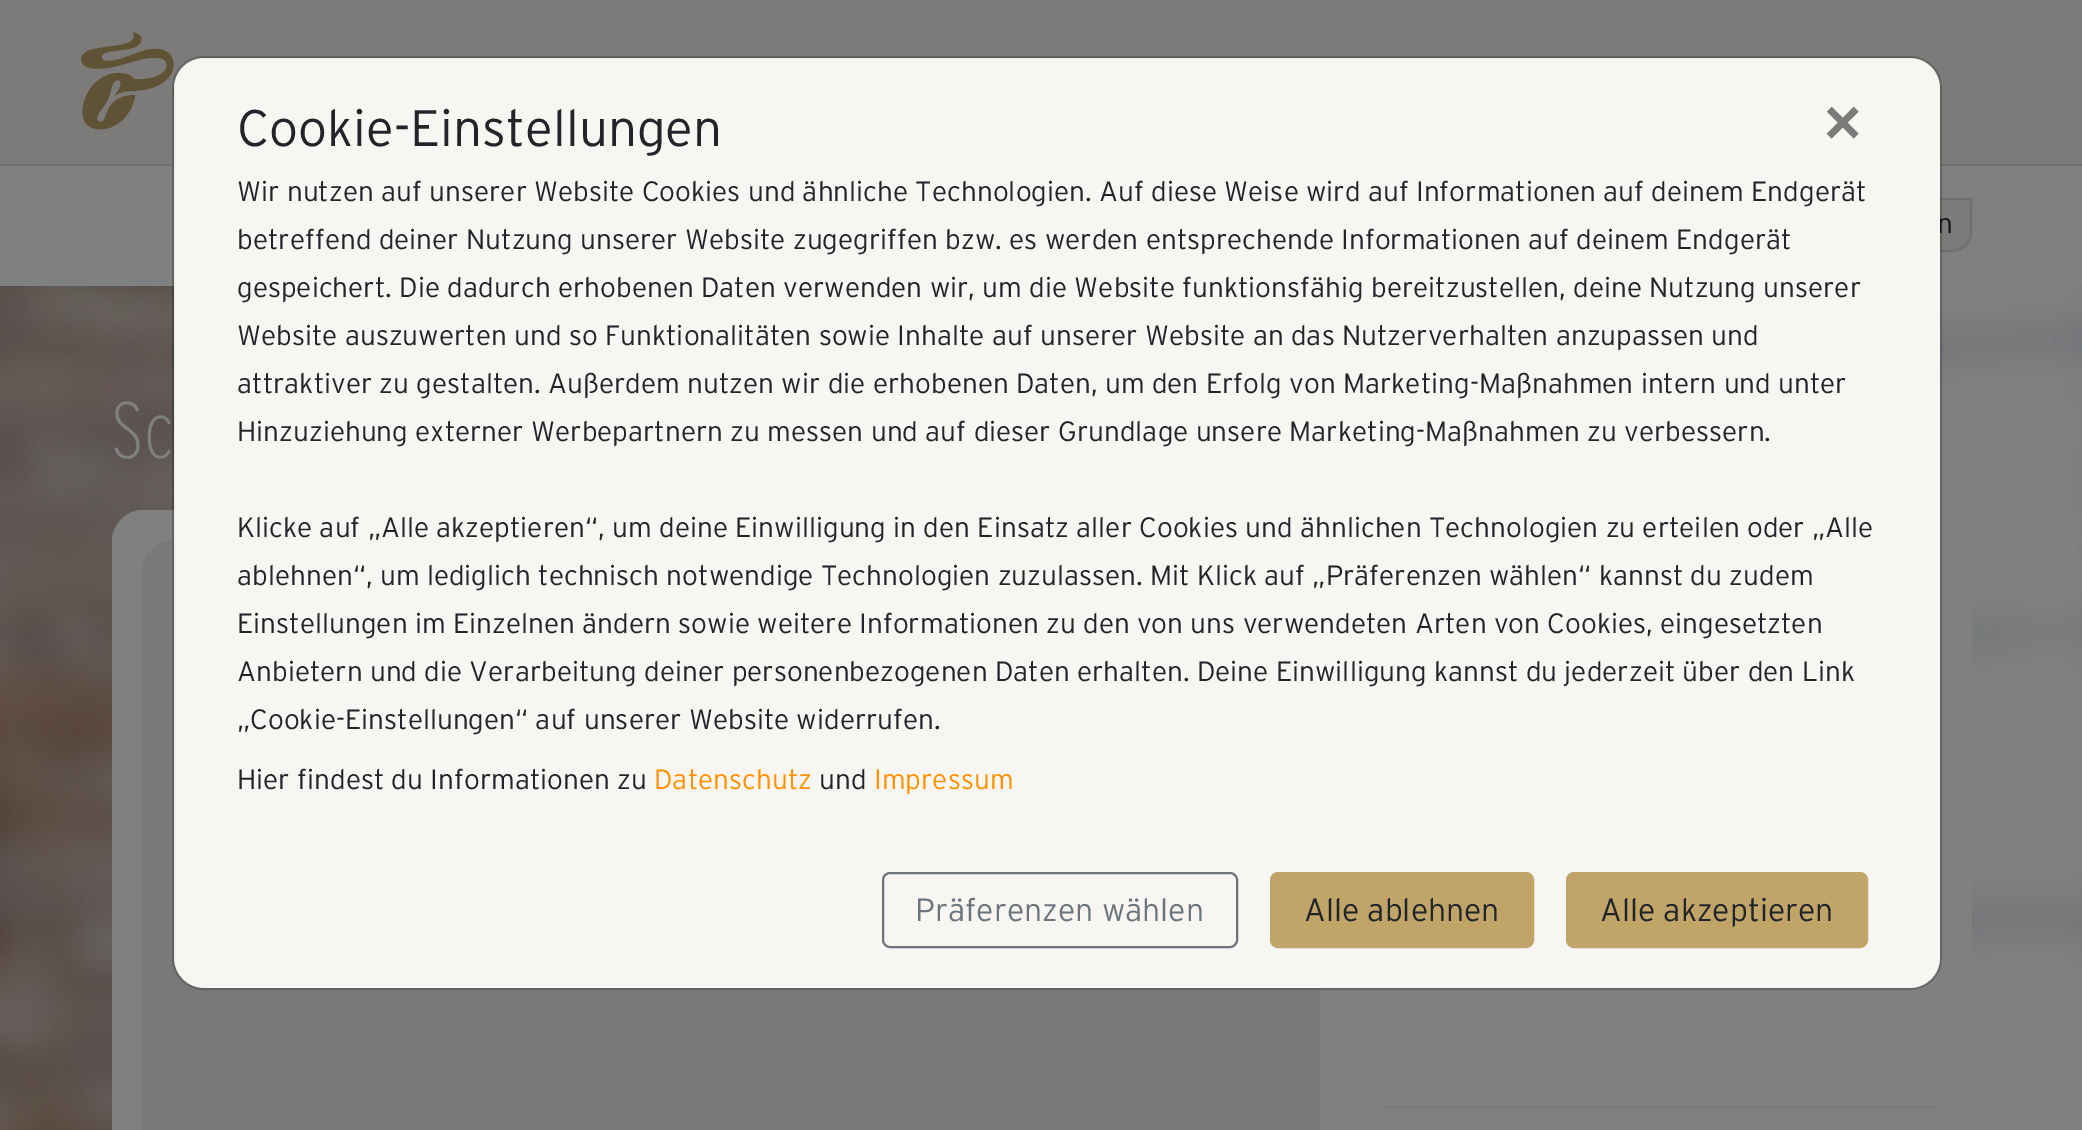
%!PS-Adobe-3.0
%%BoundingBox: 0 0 2082 1130
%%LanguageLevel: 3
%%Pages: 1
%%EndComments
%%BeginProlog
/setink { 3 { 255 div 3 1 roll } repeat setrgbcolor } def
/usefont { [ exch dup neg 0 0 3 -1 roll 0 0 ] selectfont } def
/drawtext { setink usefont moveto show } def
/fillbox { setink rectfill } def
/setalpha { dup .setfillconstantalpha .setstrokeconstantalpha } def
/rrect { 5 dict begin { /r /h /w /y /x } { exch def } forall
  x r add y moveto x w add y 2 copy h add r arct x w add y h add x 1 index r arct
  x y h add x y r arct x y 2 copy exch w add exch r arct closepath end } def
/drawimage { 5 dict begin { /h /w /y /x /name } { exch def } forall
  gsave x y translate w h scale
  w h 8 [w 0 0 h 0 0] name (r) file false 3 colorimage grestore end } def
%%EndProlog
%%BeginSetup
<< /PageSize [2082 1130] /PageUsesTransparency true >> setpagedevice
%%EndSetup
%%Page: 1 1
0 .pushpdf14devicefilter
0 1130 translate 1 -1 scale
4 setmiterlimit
0 0 2082 1130 128 128 128 fillbox
0 0 2082 164 124 123 121 fillbox
0 164 2082 2 112 111 109 fillbox
(assets/img1.rgb) 81 32 94 98 drawimage
124 123 121 setink
1830 199 moveto 1971 199 lineto 1971 232 lineto 1971 242.5 1962.5 251 1952 251 curveto 1811 251 lineto 1811 218 lineto 1811 207.5 1819.5 199 1830 199 curveto closepath gsave fill grestore
112 111 109 setink
2 setlinewidth
stroke
(n) 1937 233 /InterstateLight-Light 28 17 21 24 drawtext
(assets/img2.rgb) 0 286 2082 844 drawimage
128 128 128 setink
112 510 1860 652 32 rrect fill
30 setlinewidth
127 525 1208 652 17 rrect stroke
(assets/img3.rgb) 142 540 32 32 drawimage
121 121 121 setink
142 540 1178 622 32 rrect fill
248 246 242 setink
174 58 1766 930 30 rrect fill
0.2 setalpha
0 0 0 setink
2 setlinewidth
173 57 1768 932 31 rrect stroke
1 setalpha
(Cookie-Einstellungen) 237 146 /InterstateLight-Light 51.25 33 37 41 drawtext
(×) 1824 144 /LiberationSans-Bold 64 124 123 121 drawtext
(Wir nutzen auf unserer Website Cookies und ähnliche Technologien. Auf diese Weise wird auf Informationen auf deinem Endgerät) 237 201 /InterstateLight-Light 28 33 37 41 drawtext
(betreffend deiner Nutzung unserer Website zugegriffen bzw. es werden entsprechende Informationen auf deinem Endgerät) 237 249 /InterstateLight-Light 28 33 37 41 drawtext
(gespeichert. Die dadurch erhobenen Daten verwenden wir, um die Website funktionsfähig bereitzustellen, deine Nutzung unserer) 237 297 /InterstateLight-Light 28 33 37 41 drawtext
(Website auszuwerten und so Funktionalitäten sowie Inhalte auf unserer Website an das Nutzerverhalten anzupassen und) 237 345 /InterstateLight-Light 28 33 37 41 drawtext
(attraktiver zu gestalten. Außerdem nutzen wir die erhobenen Daten, um den Erfolg von Marketing-Maßnahmen intern und unter) 237 393 /InterstateLight-Light 28 33 37 41 drawtext
(Hinzuziehung externer Werbepartnern zu messen und auf dieser Grundlage unsere Marketing-Maßnahmen zu verbessern.) 237 441 /InterstateLight-Light 28 33 37 41 drawtext
(Klicke auf „Alle akzeptieren“, um deine Einwilligung in den Einsatz aller Cookies und ähnlichen Technologien zu erteilen oder „Alle) 237 537 /InterstateLight-Light 28 33 37 41 drawtext
(ablehnen“, um lediglich technisch notwendige Technologien zuzulassen. Mit Klick auf „Präferenzen wählen“ kannst du zudem) 237 585 /InterstateLight-Light 28 33 37 41 drawtext
(Einstellungen im Einzelnen ändern sowie weitere Informationen zu den von uns verwendeten Arten von Cookies, eingesetzten) 237 633 /InterstateLight-Light 28 33 37 41 drawtext
(Anbietern und die Verarbeitung deiner personenbezogenen Daten erhalten. Deine Einwilligung kannst du jederzeit über den Link) 237 681 /InterstateLight-Light 28 33 37 41 drawtext
(„Cookie-Einstellungen“ auf unserer Website widerrufen.) 237 729 /InterstateLight-Light 28 33 37 41 drawtext
(Hier findest du Informationen zu) 237 789 /InterstateLight-Light 28 33 37 41 drawtext
(Datenschutz) 654 789 /InterstateLight-Light 28 255 145 0 drawtext
(und) 819 789 /InterstateLight-Light 28 33 37 41 drawtext
(Impressum) 874 789 /InterstateLight-Light 28 255 145 0 drawtext
108 117 125 setink
883 873 354 74 7 rrect stroke
(Präferenzen wählen) 915 921 /InterstateLight-Light 32 108 117 125 drawtext
192 164 104 setink
1271 873 262 74 7 rrect gsave fill grestore
stroke
(Alle ablehnen) 1304 921 /InterstateLight-Light 32 33 37 41 drawtext
192 164 104 setink
1567 873 300 74 7 rrect gsave fill grestore
stroke
(Alle akzeptieren) 1600 921 /InterstateLight-Light 32 33 37 41 drawtext
(Sc) 111 458 /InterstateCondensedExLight-ExtraLight 80 128 128 128 drawtext
1380 1106 558 2 124 123 121 fillbox
.poppdf14devicefilter showpage
%%EOF
